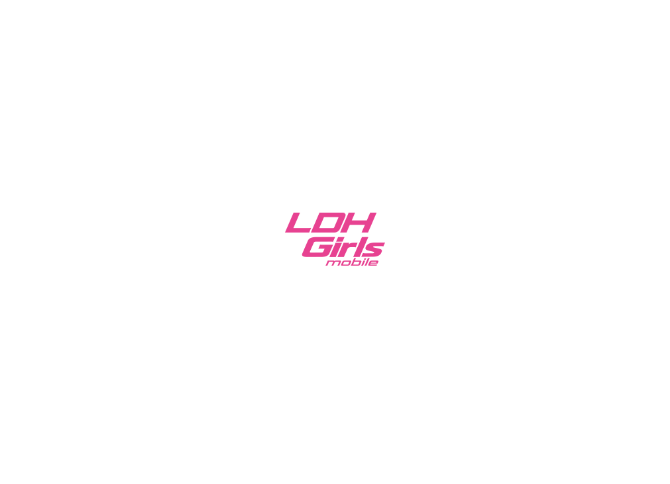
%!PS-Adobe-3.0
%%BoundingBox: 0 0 670 484
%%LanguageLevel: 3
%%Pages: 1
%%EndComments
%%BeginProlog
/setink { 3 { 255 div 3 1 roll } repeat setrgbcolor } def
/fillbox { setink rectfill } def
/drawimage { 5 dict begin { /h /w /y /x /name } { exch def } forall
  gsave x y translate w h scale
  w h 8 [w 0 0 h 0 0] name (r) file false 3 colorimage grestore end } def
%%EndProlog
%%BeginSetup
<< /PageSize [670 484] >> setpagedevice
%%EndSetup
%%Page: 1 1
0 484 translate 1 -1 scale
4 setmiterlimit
0 0 670 484 255 255 255 fillbox
(assets/img1.rgb) 285 212 100 54 drawimage
showpage
%%EOF
